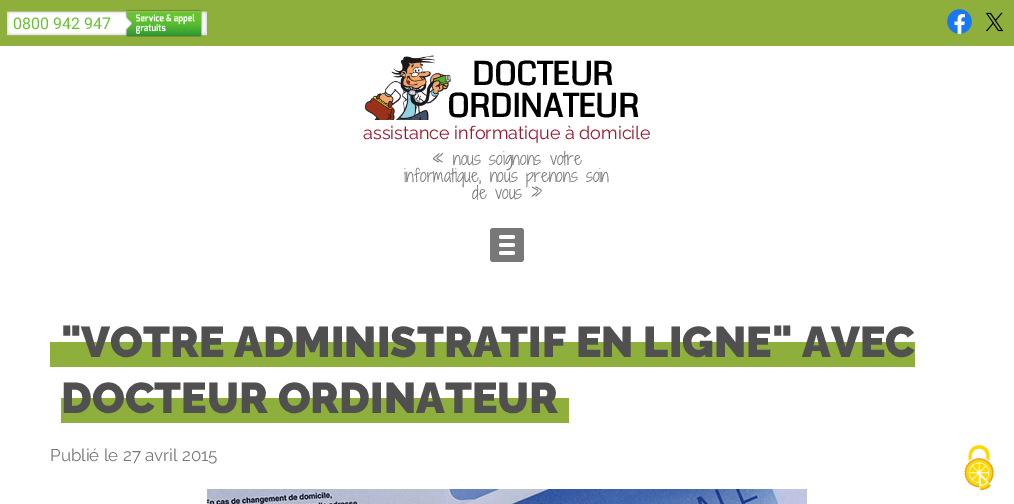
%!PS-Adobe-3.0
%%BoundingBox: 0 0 1014 504
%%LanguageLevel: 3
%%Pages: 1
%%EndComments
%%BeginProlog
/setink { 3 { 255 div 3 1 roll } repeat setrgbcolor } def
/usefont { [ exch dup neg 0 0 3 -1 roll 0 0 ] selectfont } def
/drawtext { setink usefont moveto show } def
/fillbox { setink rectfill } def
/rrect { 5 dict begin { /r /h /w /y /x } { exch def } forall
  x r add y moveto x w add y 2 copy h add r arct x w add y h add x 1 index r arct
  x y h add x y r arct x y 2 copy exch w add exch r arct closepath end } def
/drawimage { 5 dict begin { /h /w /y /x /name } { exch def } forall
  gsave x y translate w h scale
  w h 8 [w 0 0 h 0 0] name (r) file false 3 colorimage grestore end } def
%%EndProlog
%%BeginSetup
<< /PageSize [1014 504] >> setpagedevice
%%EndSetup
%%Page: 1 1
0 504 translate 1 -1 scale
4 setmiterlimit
0 0 1014 504 255 255 255 fillbox
0 0 1014 46 142 175 60 fillbox
(assets/img1.rgb) 7 9 200 28 drawimage
(0800 942 947) 13 29 /Roboto-Regular 16 102 196 48 drawtext
(assets/img2.rgb) 947 9 25 25 drawimage
(assets/img3.rgb) 985 12 19 20 drawimage
(assets/img4.rgb) 364 55 87 65 drawimage
(DOCTEUR) 472 85 /Coda-Bold 32 0 0 0 drawtext
(ORDINATEUR) 447 117 /Coda-Bold 32 0 0 0 drawtext
(assistance informatique à domicile) 363 139 /Raleway-Regular 18 157 24 45 drawtext
(« nous soignons votre) 432 165 /ShadowsIntoLightTwo-Light 17 120 120 120 drawtext
(informatique, nous prenons soin) 404 182 /ShadowsIntoLightTwo-Light 17 120 120 120 drawtext
(de vous ») 472 199 /ShadowsIntoLightTwo-Light 17 120 120 120 drawtext
490 228 34 34 3 rrect fill
255 255 255 setink
499 235 16 4 2 rrect fill
499 243 16 4 2 rrect fill
499 251 16 4 2 rrect fill
gsave 50 342 moveto 915 342 lineto 915 367 lineto 50 367 lineto closepath clip newpath
<< /ShadingType 2 /ColorSpace /DeviceRGB /Coords [483 317 483 367] /Extend [true true] /Function << /FunctionType 3 /Domain [0 1] /Functions [<< /FunctionType 2 /Domain [0 1] /C0 [1 1 1] /C1 [1 1 1] /N 1 >> << /FunctionType 2 /Domain [0 1] /C0 [0.557 0.686 0.235] /C1 [0.557 0.686 0.235] /N 1 >>] /Bounds [0.5] /Encode [0 1 0 1] >> >> shfill grestore
("VOTRE ADMINISTRATIF EN LIGNE" AVEC) 61 357 /Raleway-Black 43 80 80 80 drawtext
gsave 61 398 moveto 569 398 lineto 569 423 lineto 61 423 lineto closepath clip newpath
<< /ShadingType 2 /ColorSpace /DeviceRGB /Coords [315 373 315 423] /Extend [true true] /Function << /FunctionType 3 /Domain [0 1] /Functions [<< /FunctionType 2 /Domain [0 1] /C0 [1 1 1] /C1 [1 1 1] /N 1 >> << /FunctionType 2 /Domain [0 1] /C0 [0.557 0.686 0.235] /C1 [0.557 0.686 0.235] /N 1 >>] /Bounds [0.5] /Encode [0 1 0 1] >> >> shfill grestore
(DOCTEUR ORDINATEUR) 61 413 /Raleway-Black 43 80 80 80 drawtext
(Publié le 27 avril 2015) 50 461 /Raleway-Regular 17 120 120 120 drawtext
(assets/img5.rgb) 207 489 600 15 drawimage
(assets/img6.rgb) 964 445 30 46 drawimage
showpage
%%EOF
